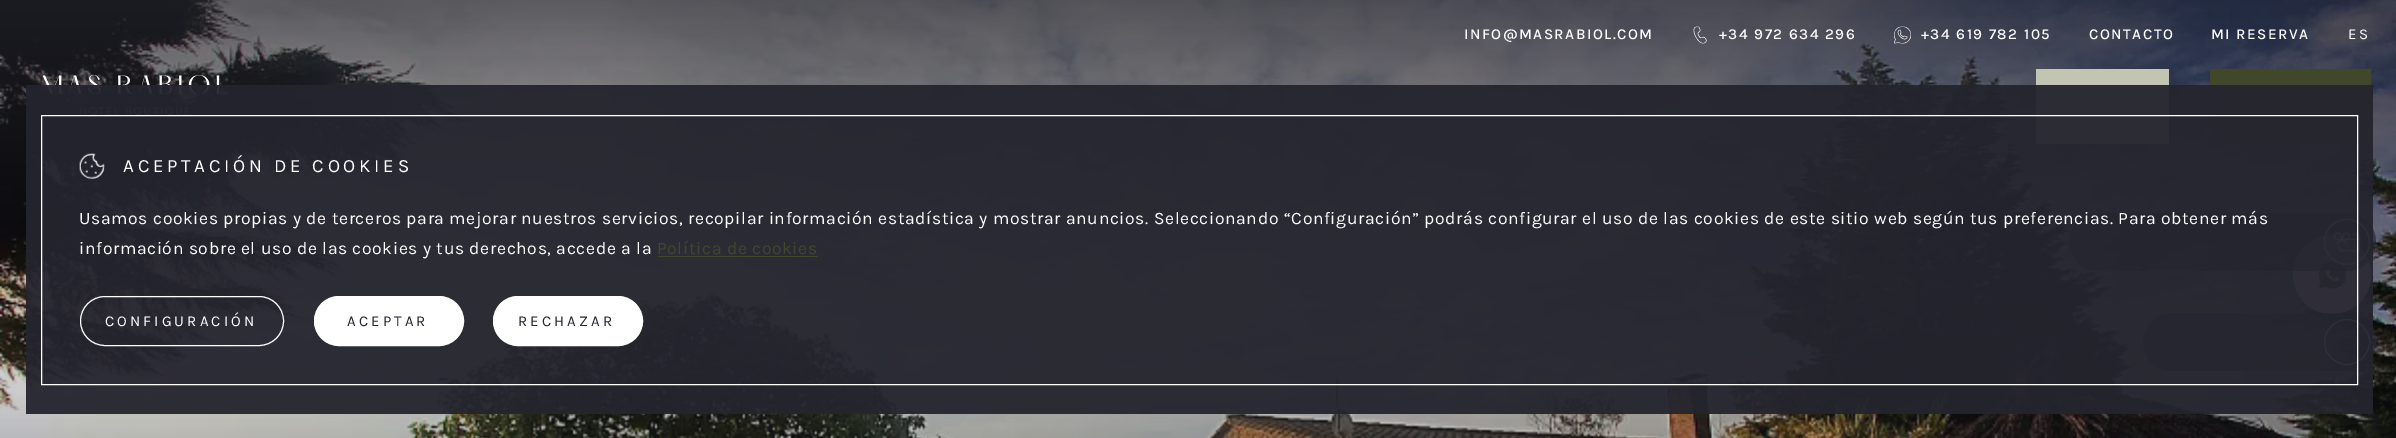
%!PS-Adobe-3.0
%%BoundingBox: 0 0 2396 438
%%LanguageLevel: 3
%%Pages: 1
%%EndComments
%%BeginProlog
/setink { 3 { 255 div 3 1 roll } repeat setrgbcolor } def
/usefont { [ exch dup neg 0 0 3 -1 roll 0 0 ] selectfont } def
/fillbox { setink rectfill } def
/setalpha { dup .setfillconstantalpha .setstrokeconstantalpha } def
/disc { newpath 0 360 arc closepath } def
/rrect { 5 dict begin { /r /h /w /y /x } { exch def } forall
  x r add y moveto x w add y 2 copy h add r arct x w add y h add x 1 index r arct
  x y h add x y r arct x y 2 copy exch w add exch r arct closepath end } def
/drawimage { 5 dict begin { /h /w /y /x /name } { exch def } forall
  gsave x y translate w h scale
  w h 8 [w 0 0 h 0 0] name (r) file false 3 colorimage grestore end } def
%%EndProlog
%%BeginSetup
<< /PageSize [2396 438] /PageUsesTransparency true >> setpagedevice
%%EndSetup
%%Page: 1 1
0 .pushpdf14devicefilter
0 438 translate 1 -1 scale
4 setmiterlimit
0 0 2396 438 255 255 255 fillbox
(assets/img1.rgb) 0 0 2396 438 drawimage
/Karla-Medium 15 usefont
1464 39 moveto 1.5 0 (INFO@MASRABIOL.COM) ashow
(assets/img2.rgb) 1693 26 14 18 drawimage
1719 39 moveto 1.5 0 (+34 972 634 296) ashow
(assets/img3.rgb) 1894 26 17 18 drawimage
1921 39 moveto 1.5 0 (+34 619 782 105) ashow
2089 39 moveto 1.5 0 (CONTACTO) ashow
2211 39 moveto 1.5 0 (MI RESERVA) ashow
/Karla-Regular 15 usefont
2348 39 moveto 3 0 (ES) ashow
2036 69 133 75 193 197 178 fillbox
65 71 43 setink
2210.5 69.5 160 74 0.5 rrect gsave fill grestore
stroke
(assets/img4.rgb) 42 75 186 42 drawimage
245 241 233 setink
2293 235 78 79 39 rrect fill
(assets/img7.rgb) 2318 261 29 29 drawimage
0.63 setalpha
36 36 47 setink
2069 213 307 58 29 rrect fill
1 setalpha
(assets/img6.rgb) 2323 218 47 47 drawimage
0.63 setalpha
2143 313 233 58 29 rrect fill
1 setalpha
255 255 255 setink
2347 342 22.5 disc stroke
0.95 setalpha
26 85 2347 329 36 36 46 fillbox
1 setalpha
255 255 255 setink
41.5 115.5 2316 269 rectstroke
(assets/img5.rgb) 79 153 26 26 drawimage
/Karla-Regular 18.75 usefont
123 172 moveto 3.75 0 (ACEPTACIÓN DE COOKIES) ashow
/Karla-Regular 17.5 usefont
79 224 moveto 0.62 0 (Usamos cookies propias y de terceros para mejorar nuestros servicios, recopilar información estadística y mostrar anuncios. Seleccionando “Configuración” podrás configurar el uso de las cookies de este sitio web según tus preferencias. Para obtener más) ashow
79 254 moveto 0.62 0 (información sobre el uso de las cookies y tus derechos, accede a la) ashow
65 71 43 setink
657 254 moveto 0.62 0 (Política de cookies) ashow
658 256 160 1 65 71 43 fillbox
255 255 255 setink
80.5 296.5 203 49 24.5 rrect stroke
/Karla-Regular 15 usefont
105 326 moveto 3.1 0 (CONFIGURACIÓN) ashow
314.5 296.5 149 49 24.5 rrect gsave fill grestore
stroke
36 36 46 setink
347 326 moveto 3.1 0 (ACEPTAR) ashow
255 255 255 setink
493.5 296.5 149 49 24.5 rrect gsave fill grestore
stroke
36 36 46 setink
518 326 moveto 3.1 0 (RECHAZAR) ashow
.poppdf14devicefilter showpage
%%EOF
